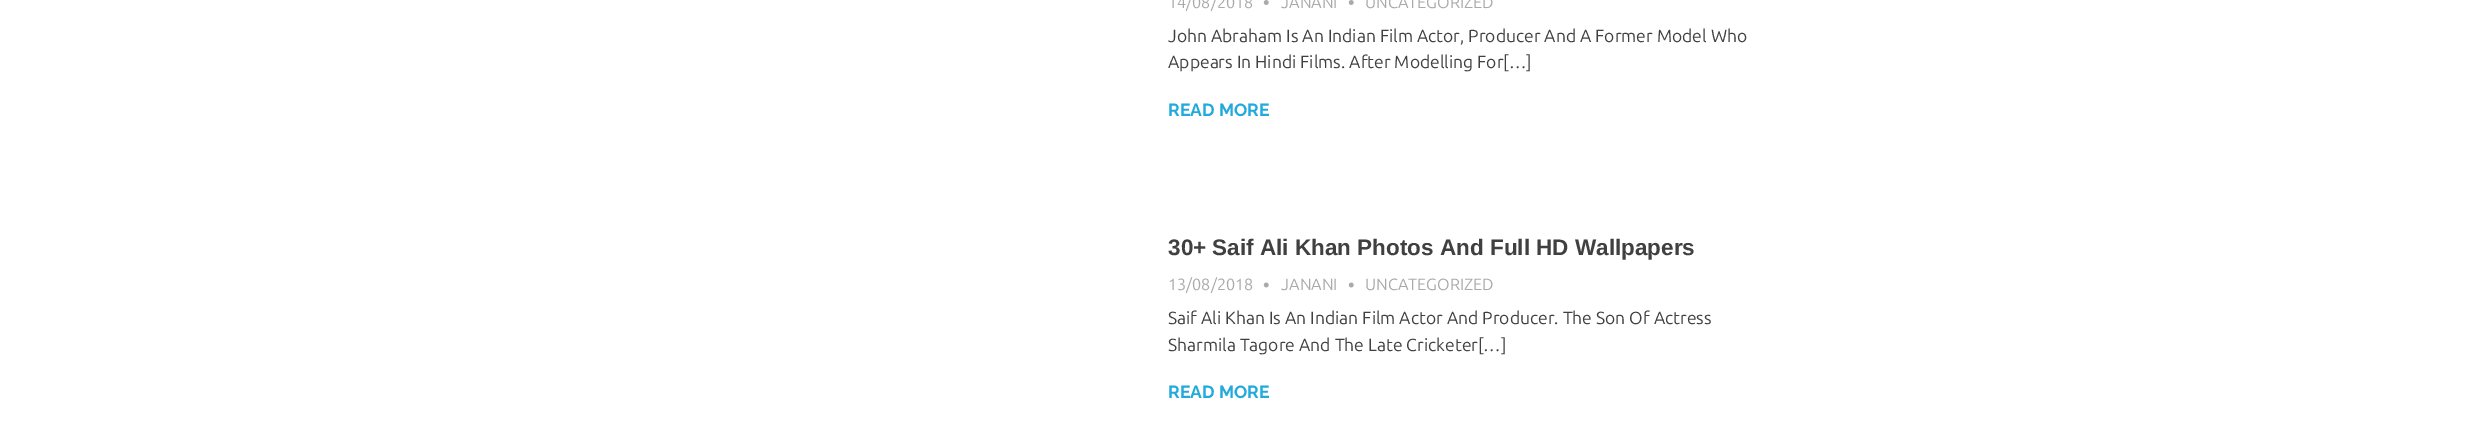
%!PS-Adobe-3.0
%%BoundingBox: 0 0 2484 447
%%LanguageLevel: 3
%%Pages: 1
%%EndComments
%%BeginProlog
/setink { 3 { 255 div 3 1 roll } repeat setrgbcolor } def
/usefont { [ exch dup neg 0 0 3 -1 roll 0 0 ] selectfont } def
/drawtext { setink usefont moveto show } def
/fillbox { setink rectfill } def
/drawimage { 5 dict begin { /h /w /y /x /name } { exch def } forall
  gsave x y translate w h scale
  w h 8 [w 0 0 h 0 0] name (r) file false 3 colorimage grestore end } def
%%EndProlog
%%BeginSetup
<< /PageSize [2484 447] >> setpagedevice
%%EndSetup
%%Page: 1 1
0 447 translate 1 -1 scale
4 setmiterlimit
0 0 2484 447 255 255 255 fillbox
(14/08/2018) 1168 8 /Ubuntu-Regular 16.25 170 170 170 drawtext
(assets/img1.rgb) 1263 0 6 5 drawimage
(JANANI) 1281 8 /Ubuntu-Regular 16.25 170 170 170 drawtext
(assets/img1.rgb) 1348 0 6 5 drawimage
(UNCATEGORIZED) 1365 8 /Ubuntu-Regular 16.25 170 170 170 drawtext
(John Abraham Is An Indian Film Actor, Producer And A Former Model Who) 1168 42 /Ubuntu-Regular 17.5 64 64 64 drawtext
(Appears In Hindi Films. After Modelling For[…]) 1168 68 /Ubuntu-Regular 17.5 64 64 64 drawtext
(READ MORE) 1168 116 /Raleway-Bold 17.5 34 170 221 drawtext
(30+ Saif Ali Khan Photos And Full HD Wallpapers) 1168 255 /LiberationSans-Bold 22.5 64 64 64 drawtext
(13/08/2018) 1168 290 /Ubuntu-Regular 16.25 170 170 170 drawtext
(assets/img2.rgb) 1263 282 6 6 drawimage
(JANANI) 1281 290 /Ubuntu-Regular 16.25 170 170 170 drawtext
(assets/img2.rgb) 1348 282 6 6 drawimage
(UNCATEGORIZED) 1365 290 /Ubuntu-Regular 16.25 170 170 170 drawtext
(Saif Ali Khan Is An Indian Film Actor And Producer. The Son Of Actress) 1168 324 /Ubuntu-Regular 17.5 64 64 64 drawtext
(Sharmila Tagore And The Late Cricketer[…]) 1168 351 /Ubuntu-Regular 17.5 64 64 64 drawtext
(READ MORE) 1168 398 /Raleway-Bold 17.5 34 170 221 drawtext
showpage
%%EOF
